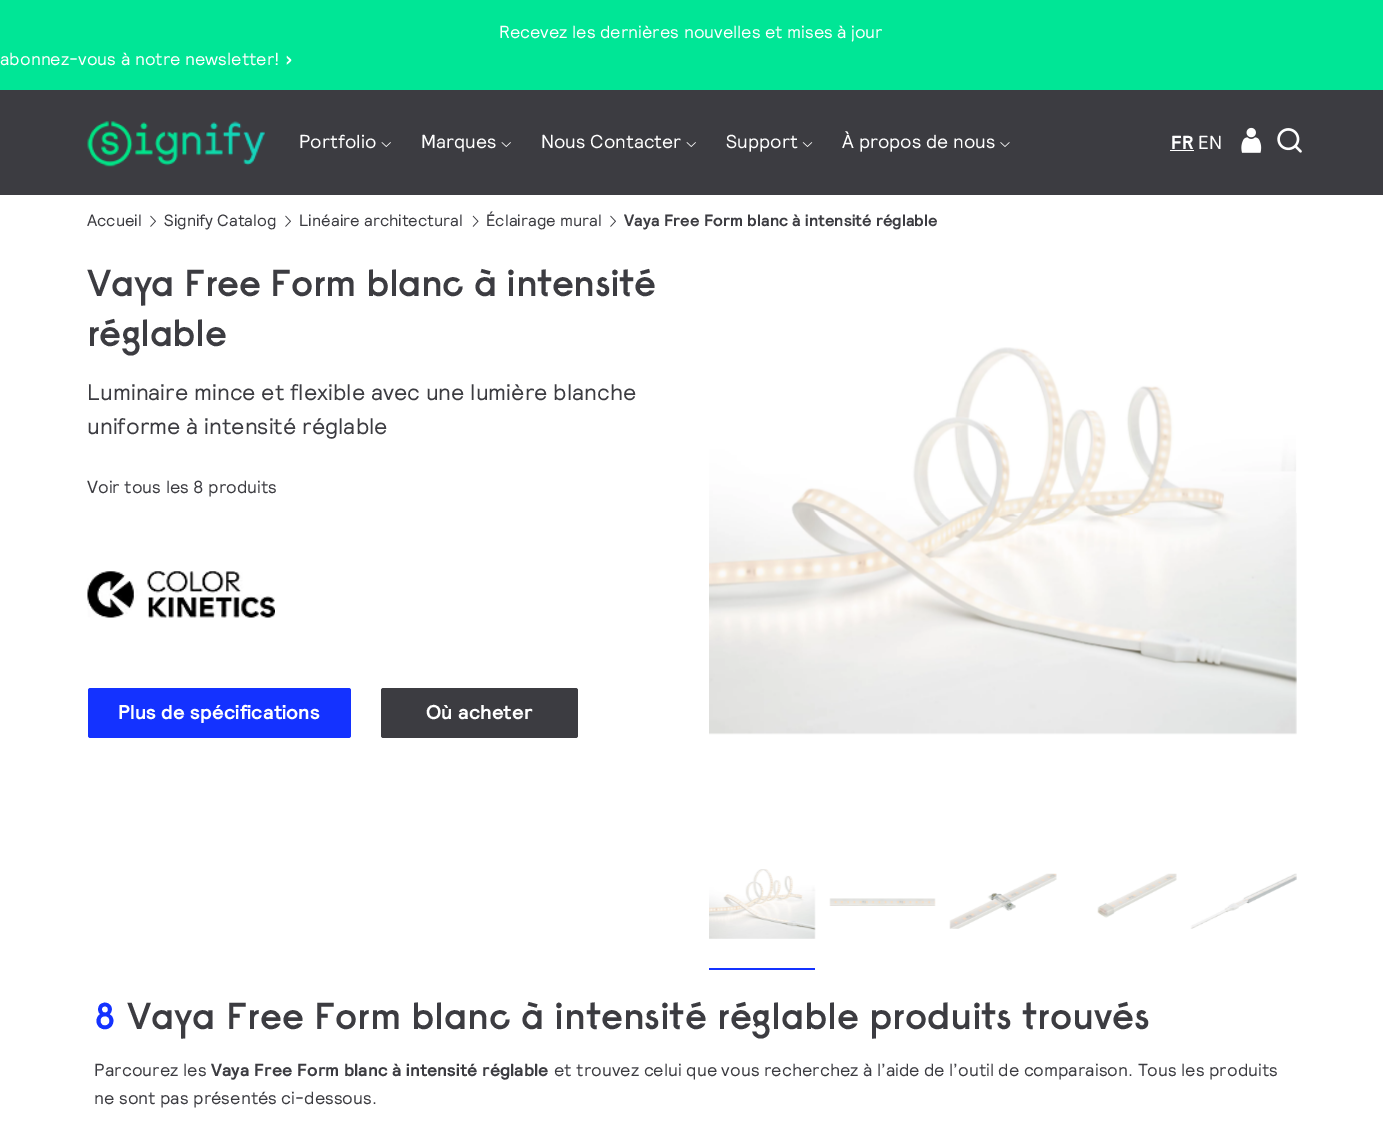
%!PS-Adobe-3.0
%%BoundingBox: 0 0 1383 1124
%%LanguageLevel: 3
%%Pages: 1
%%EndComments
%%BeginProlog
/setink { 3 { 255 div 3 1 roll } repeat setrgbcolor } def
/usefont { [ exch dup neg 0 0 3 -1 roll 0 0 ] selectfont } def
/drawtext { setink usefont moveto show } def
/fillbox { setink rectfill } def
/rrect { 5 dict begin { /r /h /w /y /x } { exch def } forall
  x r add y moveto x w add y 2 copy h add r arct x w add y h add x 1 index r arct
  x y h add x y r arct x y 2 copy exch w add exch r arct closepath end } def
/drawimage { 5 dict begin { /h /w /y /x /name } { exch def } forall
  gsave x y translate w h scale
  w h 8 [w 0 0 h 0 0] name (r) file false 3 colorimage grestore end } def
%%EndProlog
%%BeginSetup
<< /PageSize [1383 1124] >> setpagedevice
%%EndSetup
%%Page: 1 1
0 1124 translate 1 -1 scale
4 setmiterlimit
0 0 1383 1124 255 255 255 fillbox
0 0 1383 90 0 230 150 fillbox
(Recevez les dernières nouvelles et mises à jour) 499 38 /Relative-Regular 17.5 255 255 255 drawtext
(abonnez-vous à notre newsletter!) 0 65 /Relative-Regular 17.5 255 255 255 drawtext
(›) 286 65 /Relative-Bold 17.5 255 255 255 drawtext
0 90 1383 105 60 60 65 fillbox
(assets/img1.rgb) 87 121 178 46 drawimage
(Portfolio) 299 148 /Relative-Regular 18.75 255 255 255 drawtext
(assets/img2.rgb) 381 142 10 5 drawimage
(Marques) 421 148 /Relative-Regular 18.75 255 255 255 drawtext
(assets/img2.rgb) 501 142 10 5 drawimage
(Nous Contacter) 541 148 /Relative-Regular 18.75 255 255 255 drawtext
(assets/img2.rgb) 686 142 10 5 drawimage
(Support) 726 148 /Relative-Regular 18.75 255 255 255 drawtext
(assets/img3.rgb) 802 142 11 5 drawimage
(À propos de nous) 842 148 /Relative-Regular 18.75 255 255 255 drawtext
(assets/img4.rgb) 1000 142 10 5 drawimage
(FR) 1171 149 /Relative-Bold 18.75 255 255 255 drawtext
1170 150 24 1 255 255 255 fillbox
(EN) 1198 149 /Relative-Regular 18.75 255 255 255 drawtext
(assets/img5.rgb) 1241 127 21 26 drawimage
(assets/img6.rgb) 1277 128 25 25 drawimage
(Accueil) 87 226 /Relative-Regular 16.25 60 60 65 drawtext
(assets/img7.rgb) 150 215 6 12 drawimage
(Signify Catalog) 164 226 /Relative-Regular 16.25 60 60 65 drawtext
(assets/img7.rgb) 285 215 6 12 drawimage
(Linéaire architectural) 299 226 /Relative-Regular 16.25 60 60 65 drawtext
(assets/img8.rgb) 472 215 7 12 drawimage
(Éclairage mural) 486 226 /Relative-Regular 16.25 60 60 65 drawtext
(assets/img7.rgb) 610 215 6 12 drawimage
(Vaya Free Form blanc à intensité réglable) 624 226 /Relative-Bold 16.25 60 60 65 drawtext
/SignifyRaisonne-SemiBold 37.5 usefont
87 296 moveto -0.6 0 (Vaya Free Form blanc à intensité) ashow
87 346 moveto -0.6 0 (réglable) ashow
(Luminaire mince et flexible avec une lumière blanche) 87 400 /Relative-Regular 22.5 60 60 65 drawtext
(uniforme à intensité réglable) 87 434 /Relative-Regular 22.5 60 60 65 drawtext
(Voir tous les 8 produits) 87 493 /Relative-Regular 17.5 60 60 65 drawtext
(assets/img9.rgb) 87 571 188 47 drawimage
20 50 255 setink
88 688 263 50 2.5 rrect fill
(Plus de spécifications) 118 719 /Relative-Bold 20 255 255 255 drawtext
60 60 65 setink
381 688 197 50 2.5 rrect fill
(Où acheter) 426 719 /Relative-Bold 20 255 255 255 drawtext
(assets/img10.rgb) 709 347 588 388 drawimage
709 968 106 2 20 50 255 fillbox
(assets/img11.rgb) 709 869 107 70 drawimage
(assets/img12.rgb) 829 898 107 8 drawimage
(assets/img13.rgb) 949 873 108 56 drawimage
(assets/img14.rgb) 1097 873 80 45 drawimage
(assets/img15.rgb) 1190 873 107 56 drawimage
/SignifyRaisonne-SemiBold 37.5 usefont
94 1029 moveto -0.25 0 (8) ashow
60 60 65 setink
127 1029 moveto -0.25 0 (Vaya Free Form blanc à intensité réglable produits trouvés) ashow
(Parcourez les) 94 1076 /Relative-Regular 17.5 60 60 65 drawtext
(Vaya Free Form blanc à intensité réglable) 211 1076 /Relative-Bold 17.5 60 60 65 drawtext
(et trouvez celui que vous recherchez à l’aide de l’outil de comparaison. Tous les produits) 554 1076 /Relative-Regular 17.5 60 60 65 drawtext
(ne sont pas présentés ci-dessous.) 94 1104 /Relative-Regular 17.5 60 60 65 drawtext
showpage
%%EOF
